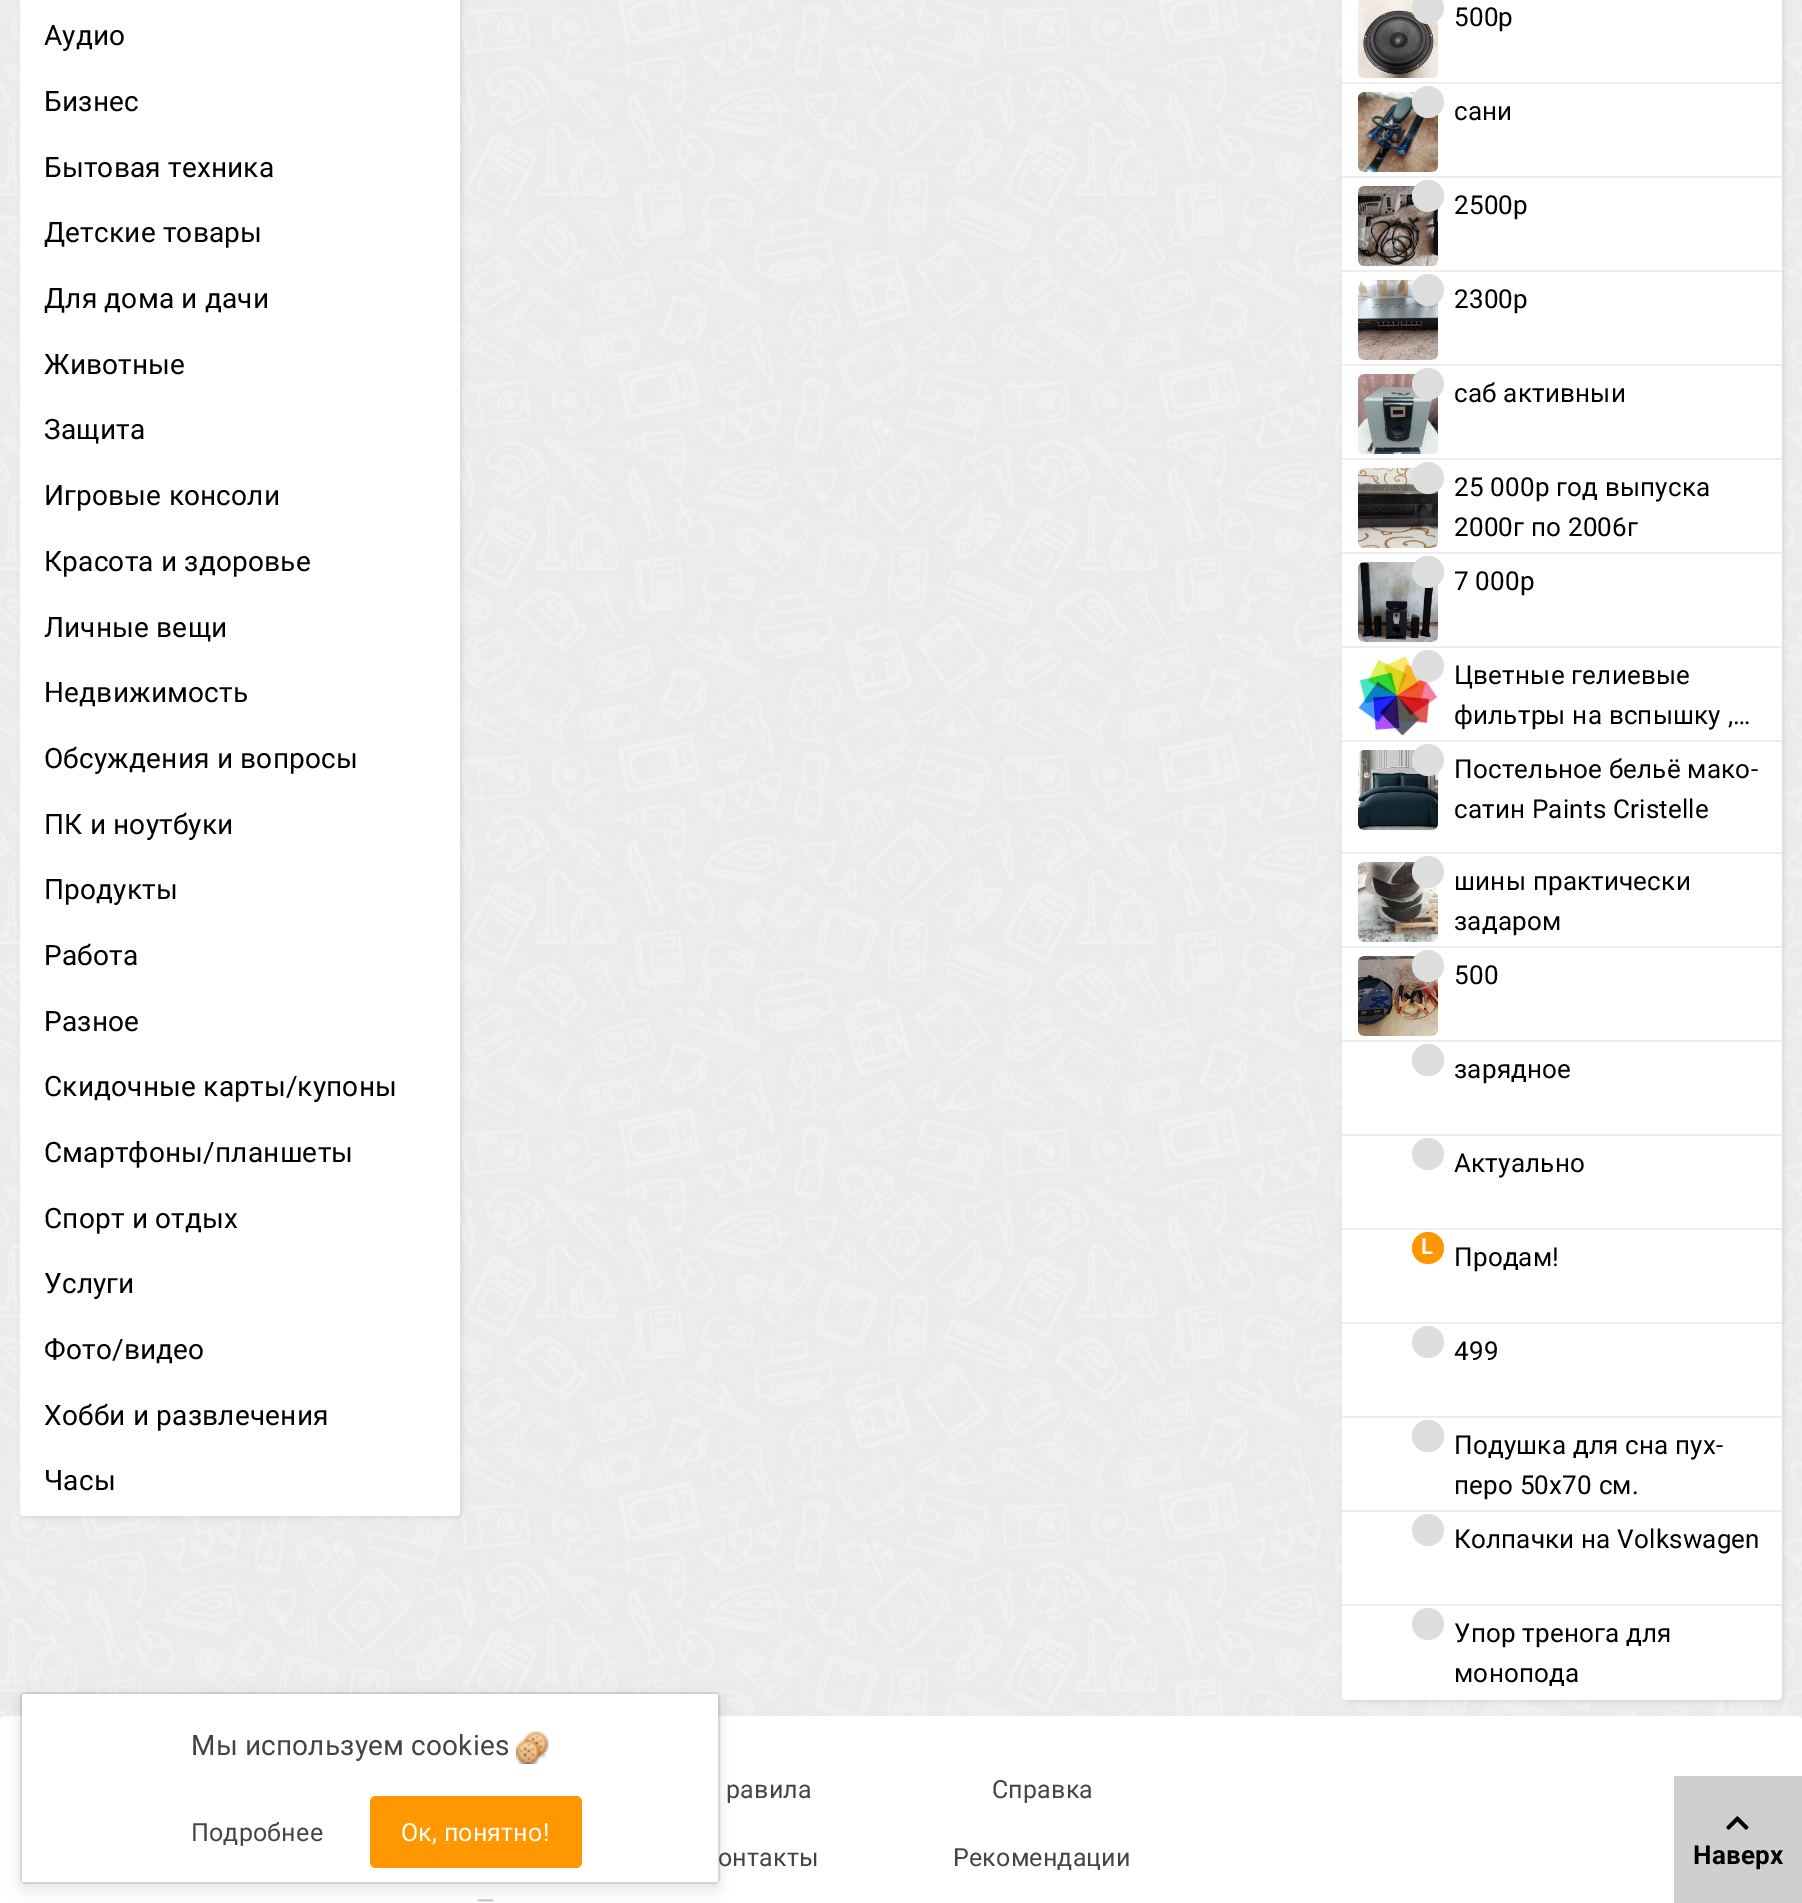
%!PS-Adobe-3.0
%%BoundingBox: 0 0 1802 1903
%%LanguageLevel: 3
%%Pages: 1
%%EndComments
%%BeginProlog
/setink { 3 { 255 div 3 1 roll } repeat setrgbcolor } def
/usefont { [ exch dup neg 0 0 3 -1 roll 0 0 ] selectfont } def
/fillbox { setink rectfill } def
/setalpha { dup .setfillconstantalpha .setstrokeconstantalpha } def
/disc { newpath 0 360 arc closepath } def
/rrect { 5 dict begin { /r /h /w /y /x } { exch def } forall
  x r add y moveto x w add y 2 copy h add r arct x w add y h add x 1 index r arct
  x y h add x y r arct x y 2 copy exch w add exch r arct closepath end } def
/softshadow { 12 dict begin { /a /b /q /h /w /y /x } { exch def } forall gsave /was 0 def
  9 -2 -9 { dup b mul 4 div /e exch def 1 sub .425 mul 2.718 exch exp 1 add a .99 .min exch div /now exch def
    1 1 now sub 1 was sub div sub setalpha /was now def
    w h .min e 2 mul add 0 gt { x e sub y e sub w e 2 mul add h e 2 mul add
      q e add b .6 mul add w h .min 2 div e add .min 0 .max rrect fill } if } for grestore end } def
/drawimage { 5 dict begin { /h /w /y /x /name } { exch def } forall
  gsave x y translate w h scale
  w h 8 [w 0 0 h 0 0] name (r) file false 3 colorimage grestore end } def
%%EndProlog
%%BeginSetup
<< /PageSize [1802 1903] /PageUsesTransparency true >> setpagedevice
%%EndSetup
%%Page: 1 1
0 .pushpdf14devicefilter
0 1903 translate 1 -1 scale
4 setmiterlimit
0 0 1802 1903 255 255 255 fillbox
(assets/img1.rgb) 0 0 1802 1721 drawimage
0 0 0 setink
22 -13 440 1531 5 2.5 0.07 softshadow
255 255 255 setink
20 -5 440 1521 5 rrect fill
/Roboto-Regular 28 usefont
0 0 0 setink
44 45 moveto 0.2 0 (Аудио) ashow
44 111 moveto 0.2 0 (Бизнес) ashow
44 177 moveto 0.2 0 (Бытовая техника) ashow
44 242 moveto 0.2 0 (Детские товары) ashow
44 308 moveto 0.2 0 (Для дома и дачи) ashow
44 374 moveto 0.2 0 (Животные) ashow
44 439 moveto 0.2 0 (Защита) ashow
44 505 moveto 0.2 0 (Игровые консоли) ashow
44 571 moveto 0.2 0 (Красота и здоровье) ashow
44 637 moveto 0.2 0 (Личные вещи) ashow
44 702 moveto 0.2 0 (Недвижимость) ashow
44 768 moveto 0.2 0 (Обсуждения и вопросы) ashow
44 834 moveto 0.2 0 (ПК и ноутбуки) ashow
44 899 moveto 0.2 0 (Продукты) ashow
44 965 moveto 0.2 0 (Работа) ashow
44 1031 moveto 0.2 0 (Разное) ashow
44 1096 moveto 0.2 0 (Скидочные карты/купоны) ashow
44 1162 moveto 0.2 0 (Смартфоны/планшеты) ashow
44 1228 moveto 0.2 0 (Спорт и отдых) ashow
44 1293 moveto 0.2 0 (Услуги) ashow
44 1359 moveto 0.2 0 (Фото/видео) ashow
44 1425 moveto 0.2 0 (Хобби и развлечения) ashow
255 255 255 setink
20 1448 moveto 460 1448 lineto 460 1512 lineto 460 1514 458 1516 456 1516 curveto 24 1516 lineto 22 1516 20 1514 20 1512 curveto closepath fill
0 0 0 setink
44 1490 moveto 0.2 0 (Часы) ashow
1344 -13 440 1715 5 2.5 0.07 softshadow
255 255 255 setink
1342 -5 440 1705 5 rrect fill
1342 82 440 2 238 238 238 fillbox
(assets/img2.rgb) 1358 0 80 78 drawimage
221 221 221 setink
1428 8 16 disc fill
/Roboto-Regular 26 usefont
0 0 0 setink
1454 26 moveto 0.2 0 (500р) ashow
1342 176 440 2 238 238 238 fillbox
(assets/img3.rgb) 1358 92 80 80 drawimage
221 221 221 setink
1428 102 16 disc fill
0 0 0 setink
1454 120 moveto 0.2 0 (сани) ashow
1342 270 440 2 238 238 238 fillbox
(assets/img4.rgb) 1358 186 80 80 drawimage
221 221 221 setink
1428 196 16 disc fill
0 0 0 setink
1454 214 moveto 0.2 0 (2500р) ashow
1342 364 440 2 238 238 238 fillbox
(assets/img5.rgb) 1358 280 80 80 drawimage
221 221 221 setink
1428 290 16 disc fill
0 0 0 setink
1454 308 moveto 0.2 0 (2300р) ashow
1342 458 440 2 238 238 238 fillbox
(assets/img6.rgb) 1358 374 80 80 drawimage
221 221 221 setink
1428 384 16 disc fill
0 0 0 setink
1454 402 moveto 0.2 0 (саб активныи) ashow
1342 552 440 2 238 238 238 fillbox
(assets/img7.rgb) 1358 468 80 80 drawimage
221 221 221 setink
1428 478 16 disc fill
0 0 0 setink
1454 496 moveto 0.2 0 (25 000р год выпуска) ashow
1454 536 moveto 0.2 0 (2000г по 2006г) ashow
1342 646 440 2 238 238 238 fillbox
(assets/img8.rgb) 1358 562 80 80 drawimage
221 221 221 setink
1428 572 16 disc fill
0 0 0 setink
1454 590 moveto 0.2 0 (7 000р) ashow
1342 740 440 2 238 238 238 fillbox
(assets/img9.rgb) 1358 656 80 80 drawimage
221 221 221 setink
1428 666 16 disc fill
0 0 0 setink
1454 684 moveto 0.2 0 (Цветные гелиевые) ashow
1454 724 moveto 0.2 0 (фильтры на вспышку ,…) ashow
(assets/img10.rgb) 1358 750 80 80 drawimage
221 221 221 setink
1428 760 16 disc fill
0 0 0 setink
1454 778 moveto 0.2 0 (Постельное бельё мако-) ashow
1454 818 moveto 0.2 0 (сатин Paints Cristelle) ashow
1342 852 440 2 238 238 238 fillbox
1342 946 440 2 238 238 238 fillbox
(assets/img11.rgb) 1358 862 80 80 drawimage
221 221 221 setink
1428 872 16 disc fill
0 0 0 setink
1454 890 moveto 0.2 0 (шины практически) ashow
1454 930 moveto 0.2 0 (задаром) ashow
1342 1040 440 2 238 238 238 fillbox
(assets/img12.rgb) 1358 956 80 80 drawimage
221 221 221 setink
1428 966 16 disc fill
0 0 0 setink
1454 984 moveto 0.2 0 (500) ashow
1342 1134 440 2 238 238 238 fillbox
221 221 221 setink
1428 1060 16 disc fill
0 0 0 setink
1454 1078 moveto 0.2 0 (зарядное) ashow
1342 1228 440 2 238 238 238 fillbox
221 221 221 setink
1428 1154 16 disc fill
0 0 0 setink
1454 1172 moveto 0.2 0 (Актуально) ashow
1342 1322 440 2 238 238 238 fillbox
255 152 0 setink
1428 1248 16 disc fill
/Roboto-Bold 22 usefont
255 255 255 setink
1421 1254 moveto 0.2 0 (L) ashow
/Roboto-Regular 26 usefont
0 0 0 setink
1454 1266 moveto 0.2 0 (Продам!) ashow
1342 1416 440 2 238 238 238 fillbox
221 221 221 setink
1428 1342 16 disc fill
0 0 0 setink
1454 1360 moveto 0.2 0 (499) ashow
1342 1510 440 2 238 238 238 fillbox
221 221 221 setink
1428 1436 16 disc fill
0 0 0 setink
1454 1454 moveto 0.2 0 (Подушка для сна пух-) ashow
1454 1494 moveto 0.2 0 (перо 50х70 см.) ashow
221 221 221 setink
1428 1530 16 disc fill
0 0 0 setink
1454 1548 moveto 0.2 0 (Колпачки на Volkswagen) ashow
255 255 255 setink
1342 1604 moveto 1782 1604 lineto 1782 1696 lineto 1782 1698 1780 1700 1778 1700 curveto 1346 1700 lineto 1344 1700 1342 1698 1342 1696 curveto closepath fill
1342 1604 440 2 238 238 238 fillbox
221 221 221 setink
1428 1624 16 disc fill
0 0 0 setink
1454 1642 moveto 0.2 0 (Упор тренога для) ashow
1454 1682 moveto 0.2 0 (монопода) ashow
255 255 255 setink
0 1716 1802 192 5 rrect fill
0 0 0 setink
20 1698 700 192 5 7.5 0.1 softshadow
/Roboto-Regular 25 usefont
68 68 68 setink
718 1866 moveto 0.2 0 (онтакты) ashow
0.1 setalpha
0 0 0 setink
2 setlinewidth
21 1693 698 190 4 rrect stroke
1 setalpha
22 1694 696 188 255 255 255 fillbox
/Roboto-Regular 28 usefont
68 68 68 setink
191 1755 moveto 0.2 0 (Мы используем cookies) ashow
(assets/img13.rgb) 516 1731 33 33 drawimage
/Roboto-Regular 25 usefont
191 1841 moveto 0.2 0 (Подробнее) ashow
255 152 0 setink
370 1796 212 72 6 rrect fill
255 255 255 setink
401 1841 moveto 0.2 0 (Ок, понятно!) ashow
68 68 68 setink
726 1798 moveto 0.2 0 (равила) ashow
992 1798 moveto 0.2 0 (Справка) ashow
953 1866 moveto 0.2 0 (Рекомендации) ashow
/Roboto-Regular 24 usefont
187 187 187 setink
476 1909 moveto 0.2 0 (—) ashow
1674 1776 128 127 207 207 207 fillbox
(assets/img14.rgb) 1726 1816 23 14 drawimage
/Roboto-Bold 26 usefont
0 0 0 setink
1693 1864 moveto 0.2 0 (Наверх) ashow
.poppdf14devicefilter showpage
%%EOF
